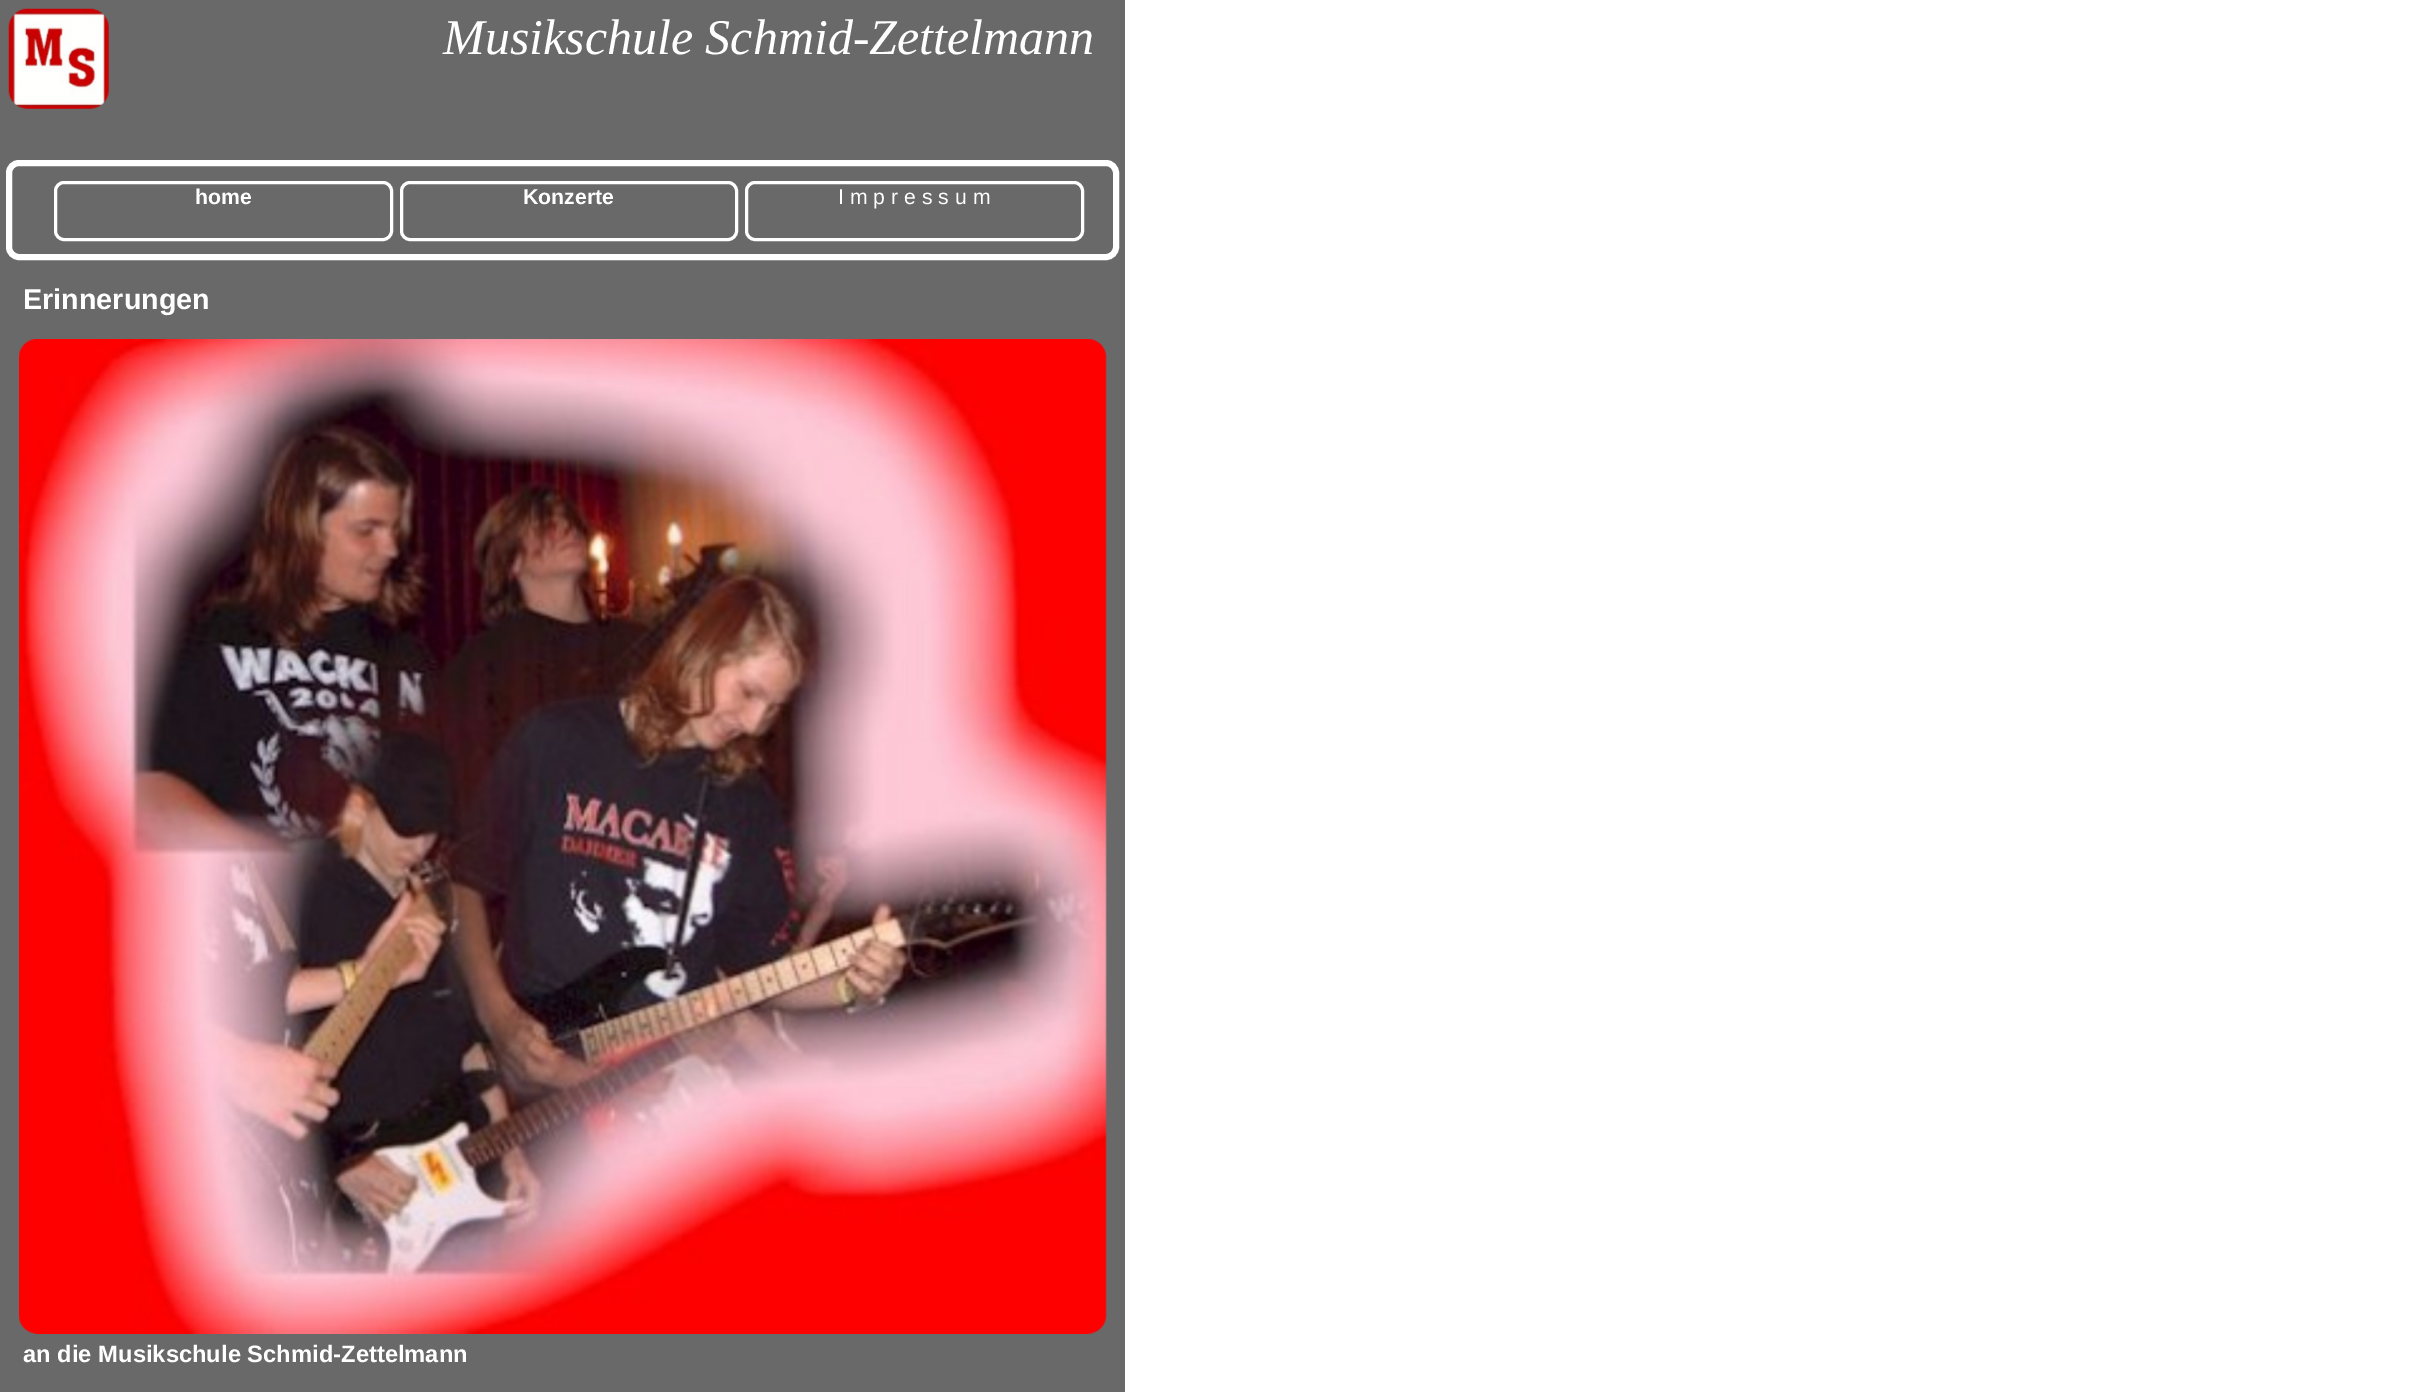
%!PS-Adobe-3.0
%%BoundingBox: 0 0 2417 1392
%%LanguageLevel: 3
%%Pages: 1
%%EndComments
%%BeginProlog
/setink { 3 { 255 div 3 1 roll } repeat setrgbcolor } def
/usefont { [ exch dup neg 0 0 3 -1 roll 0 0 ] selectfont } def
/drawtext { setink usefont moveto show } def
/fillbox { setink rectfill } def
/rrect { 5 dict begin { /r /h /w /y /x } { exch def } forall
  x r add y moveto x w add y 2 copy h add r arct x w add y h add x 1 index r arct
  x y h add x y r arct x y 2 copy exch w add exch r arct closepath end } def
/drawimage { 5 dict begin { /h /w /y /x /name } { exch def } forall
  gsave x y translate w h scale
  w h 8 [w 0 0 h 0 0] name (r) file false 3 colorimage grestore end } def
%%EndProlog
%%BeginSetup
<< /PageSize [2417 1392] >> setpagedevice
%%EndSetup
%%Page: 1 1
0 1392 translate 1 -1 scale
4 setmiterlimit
0 0 2417 1392 255 255 255 fillbox
0 0 1125 1392 105 105 105 fillbox
(assets/img1.rgb) 8 8 101 101 drawimage
(Musikschule Schmid-Zettelmann) 443 54 /LiberationSerif-Italic 50 255 255 255 drawtext
6 setlinewidth
9 163 1107 94 10 rrect stroke
3 setlinewidth
55.5 182.5 336 57 8.5 rrect stroke
(home) 195 204 /LiberationSans-Bold 21.25 255 255 255 drawtext
401.5 182.5 335 57 8.5 rrect stroke
(Konzerte) 523 204 /LiberationSans-Bold 21.25 255 255 255 drawtext
746.5 182.5 336 57 8.5 rrect stroke
(I m p r e s s u m) 838 204 /LiberationSans-Regular 21.25 255 255 255 drawtext
(Erinnerungen) 23 309 /LiberationSans-Bold 28.75 255 255 255 drawtext
(assets/img2.rgb) 19 339 1088 995 drawimage
(an die Musikschule Schmid-Zettelmann) 23 1362 /LiberationSans-Bold 23.75 255 255 255 drawtext
showpage
%%EOF
